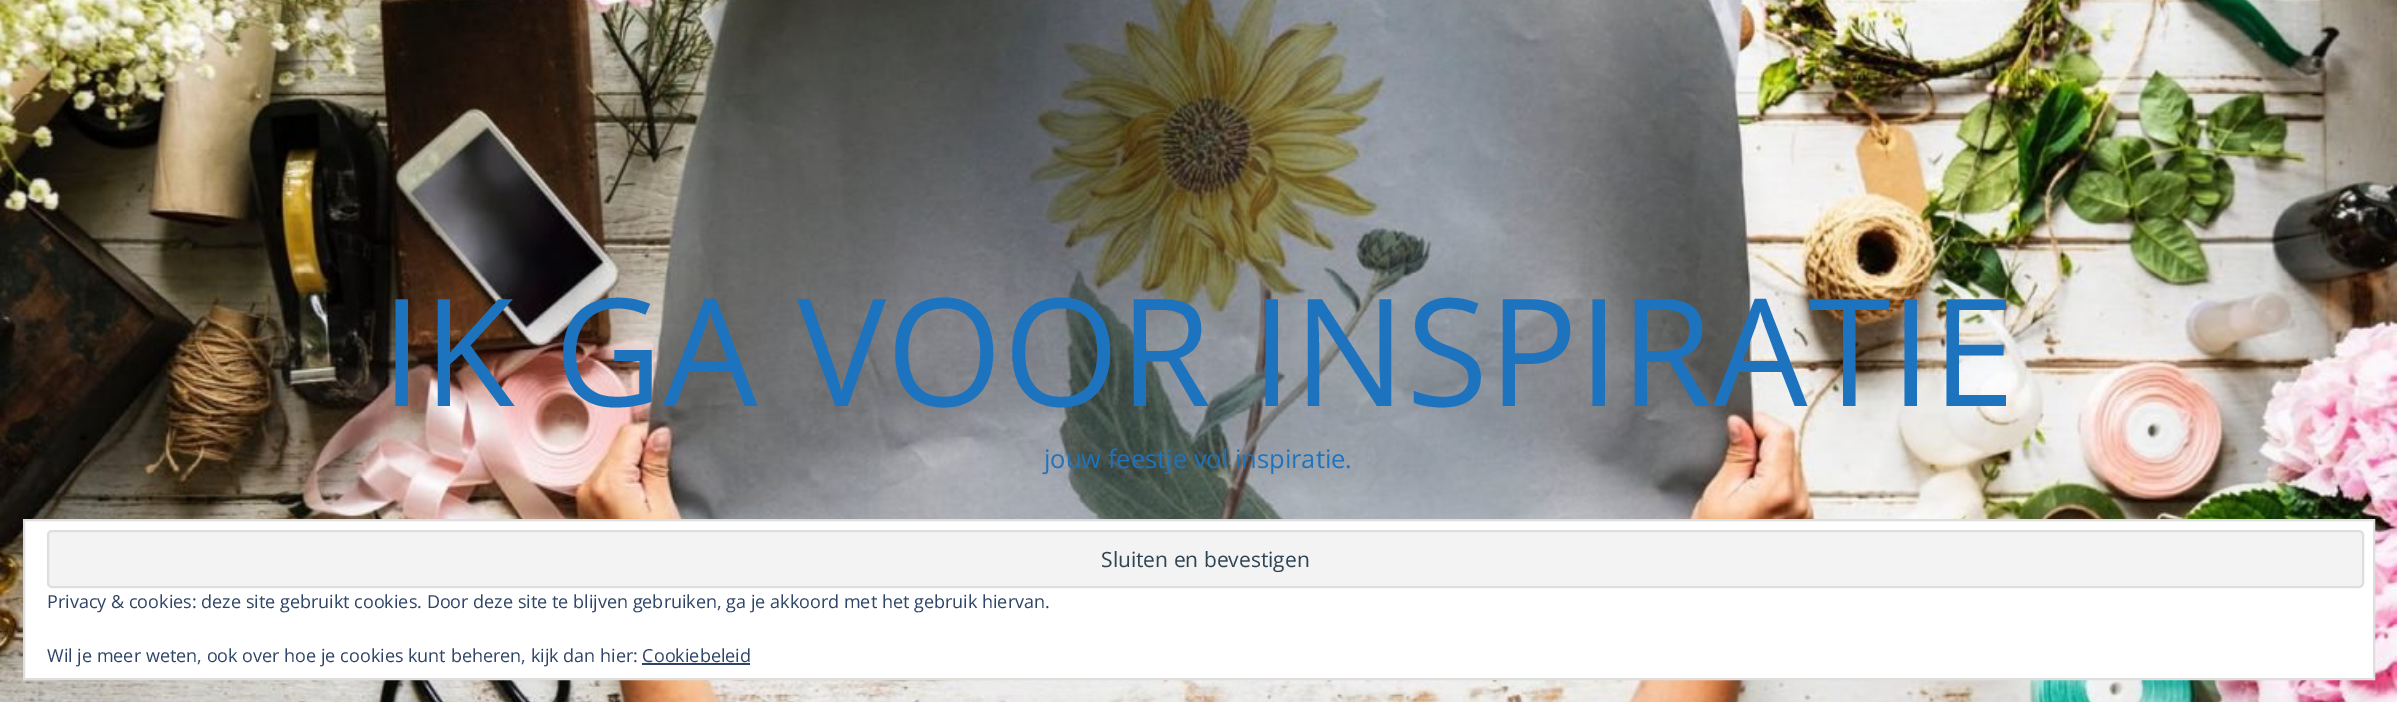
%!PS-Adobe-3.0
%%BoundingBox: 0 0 2397 702
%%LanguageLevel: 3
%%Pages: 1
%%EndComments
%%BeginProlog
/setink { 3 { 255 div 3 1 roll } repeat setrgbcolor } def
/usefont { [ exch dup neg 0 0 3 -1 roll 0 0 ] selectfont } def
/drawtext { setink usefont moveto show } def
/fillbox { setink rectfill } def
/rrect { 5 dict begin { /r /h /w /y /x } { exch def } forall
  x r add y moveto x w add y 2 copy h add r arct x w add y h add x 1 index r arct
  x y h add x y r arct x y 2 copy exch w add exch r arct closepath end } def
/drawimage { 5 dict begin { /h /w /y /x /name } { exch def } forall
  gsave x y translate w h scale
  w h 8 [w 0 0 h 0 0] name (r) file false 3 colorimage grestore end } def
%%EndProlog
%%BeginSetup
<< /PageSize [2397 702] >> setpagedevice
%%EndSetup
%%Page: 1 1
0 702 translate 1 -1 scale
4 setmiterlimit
0 0 2397 702 255 255 255 fillbox
(assets/img1.rgb) 0 0 2397 702 drawimage
(IK GA VOOR INSPIRATIE) 381 406 /OpenSans-Regular 150 30 115 190 drawtext
(jouw feestje vol inspiratie.) 1044 468 /OpenSans-Regular 25.5 30 115 190 drawtext
255 255 255 setink
24 520 moveto 2374 520 lineto 2374 679 lineto 24 679 lineto closepath gsave fill grestore
222 222 222 setink
2 setlinewidth
stroke
243 243 243 setink
48 531 2315 56 4 rrect gsave fill grestore
222 222 222 setink
stroke
(Sluiten en bevestigen) 1101 567 /OpenSans-Regular 21 46 68 83 drawtext
(Privacy & cookies: deze site gebruikt cookies. Door deze site te blijven gebruiken, ga je akkoord met het gebruik hiervan.) 47 608 /OpenSans-Regular 18 46 68 103 drawtext
(Wil je meer weten, ook over hoe je cookies kunt beheren, kijk dan hier: Cookiebeleid) 47 662 /OpenSans-Regular 18 46 68 103 drawtext
642 663 108 2 46 68 103 fillbox
showpage
%%EOF
